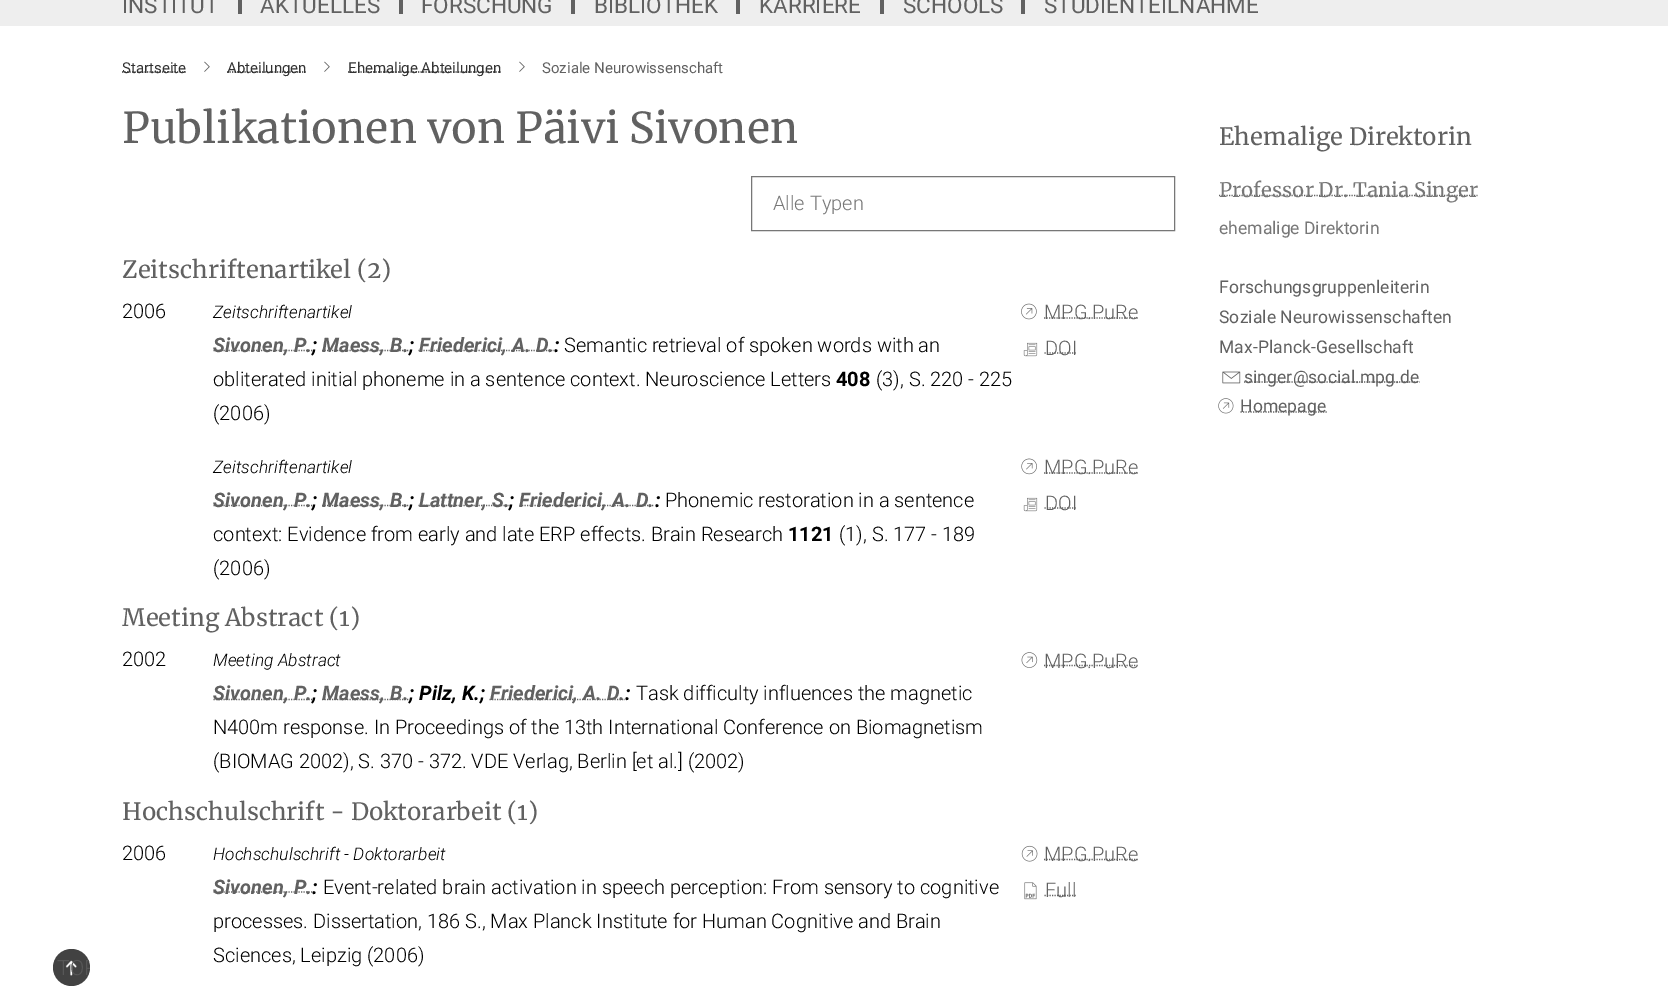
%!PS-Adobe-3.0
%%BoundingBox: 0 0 1668 1007
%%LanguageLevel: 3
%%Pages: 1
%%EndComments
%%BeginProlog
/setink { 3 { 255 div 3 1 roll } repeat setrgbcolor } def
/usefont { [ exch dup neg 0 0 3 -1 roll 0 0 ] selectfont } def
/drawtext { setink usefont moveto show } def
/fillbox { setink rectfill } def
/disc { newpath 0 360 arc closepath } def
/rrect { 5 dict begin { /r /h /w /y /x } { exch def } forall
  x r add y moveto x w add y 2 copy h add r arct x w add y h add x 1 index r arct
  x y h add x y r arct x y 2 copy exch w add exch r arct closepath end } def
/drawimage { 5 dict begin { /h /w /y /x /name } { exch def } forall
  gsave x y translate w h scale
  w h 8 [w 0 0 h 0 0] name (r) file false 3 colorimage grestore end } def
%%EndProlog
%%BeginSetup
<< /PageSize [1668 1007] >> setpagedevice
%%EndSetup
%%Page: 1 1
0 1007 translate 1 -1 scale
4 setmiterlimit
0 0 1668 1007 255 255 255 fillbox
0 0 1668 26 238 238 238 fillbox
238 0 4 14 97 97 97 fillbox
(INSTITUT) 122 13 /Roboto-Regular 22.5 97 97 97 drawtext
399 0 4 14 97 97 97 fillbox
(AKTUELLES) 260 13 /Roboto-Regular 22.5 97 97 97 drawtext
571 0 4 14 97 97 97 fillbox
(FORSCHUNG) 421 13 /Roboto-Regular 22.5 97 97 97 drawtext
736 0 4 14 97 97 97 fillbox
(BIBLIOTHEK) 594 13 /Roboto-Regular 22.5 97 97 97 drawtext
880 0 4 14 97 97 97 fillbox
(KARRIERE) 759 13 /Roboto-Regular 22.5 97 97 97 drawtext
1021 0 4 14 97 97 97 fillbox
(SCHOOLS) 903 13 /Roboto-Regular 22.5 97 97 97 drawtext
(STUDIENTEILNAHME) 1044 13 /Roboto-Regular 22.5 97 97 97 drawtext
66 66 66 setink
71.5 967.5 18.5 disc fill
(assets/img1.rgb) 65 960 12 16 drawimage
gsave
53 949 37 37 18.5 rrect clip newpath
(TOP) 57 975 /Roboto-Light 21 87 87 87 drawtext
grestore
51 51 51 setink
1.2 setlinewidth
[1.25 1.25] 0 setdash
122 72 moveto 186 72 lineto stroke
gsave
123 29 1058 74 rectclip
(Startseite) 122 73 /Roboto-Regular 15 51 51 51 drawtext
grestore
(assets/img2.rgb) 204 61 6 11 drawimage
227 72 moveto 306.5 72 lineto stroke
(Abteilungen) 227 73 /Roboto-Regular 15 51 51 51 drawtext
(assets/img2.rgb) 324 61 6 11 drawimage
348 72 moveto 501 72 lineto stroke
(Ehemalige Abteilungen) 348 73 /Roboto-Regular 15 51 51 51 drawtext
(assets/img2.rgb) 519 61 6 11 drawimage
(Soziale Neurowissenschaft) 542 73 /Roboto-Regular 15 97 97 97 drawtext
(Publikationen von Päivi Sivonen) 122 143 /Merriweather-Regular 42.5 97 97 97 drawtext
119 119 119 setink
1 setlinewidth
[] 0 setdash
751.5 176.5 423 54 rectstroke
(Alle Typen) 773 210 /Roboto-Light 20 119 119 119 drawtext
(Zeitschriftenartikel \(2\)) 122 278 /Merriweather-Regular 23.75 97 97 97 drawtext
(2006) 122 318 /Roboto-Light 20 0 0 0 drawtext
(Zeitschriftenartikel) 213 318 /Roboto-LightItalic 17.4 0 0 0 drawtext
97 97 97 setink
1.2 setlinewidth
[1.25 1.25] 0 setdash
213.5 350.5 moveto 312 350.5 lineto stroke
(Sivonen, P.) 213 352 /Roboto-BoldItalic 20 97 97 97 drawtext
(;) 312 352 /Roboto-BoldItalic 20 0 0 0 drawtext
97 97 97 setink
322 350.5 moveto 408.5 350.5 lineto stroke
(Maess, B.) 322 352 /Roboto-BoldItalic 20 97 97 97 drawtext
(;) 409 352 /Roboto-BoldItalic 20 0 0 0 drawtext
97 97 97 setink
418.5 350.5 moveto 554 350.5 lineto stroke
(Friederici, A. D.) 419 352 /Roboto-BoldItalic 20 97 97 97 drawtext
(:) 554 352 /Roboto-BoldItalic 20 0 0 0 drawtext
(Semantic retrieval of spoken words with an) 564 352 /Roboto-Light 20 0 0 0 drawtext
(obliterated initial phoneme in a sentence context. Neuroscience Letters) 213 386 /Roboto-Light 20 0 0 0 drawtext
(408) 836 386 /Roboto-Bold 20 0 0 0 drawtext
(\(3\), S. 220 - 225) 876 386 /Roboto-Light 20 0 0 0 drawtext
(\(2006\)) 213 420 /Roboto-Light 20 0 0 0 drawtext
(assets/img3.rgb) 1021 303 16 17 drawimage
97 97 97 setink
1044 318 moveto 1138.5 318 lineto stroke
(MPG.PuRe) 1044 319 /Roboto-Light 20 97 97 97 drawtext
(assets/img4.rgb) 1023 342 15 15 drawimage
1044.5 353 moveto 1076.5 353 lineto stroke
(DOI) 1045 355 /Roboto-Light 20 97 97 97 drawtext
(Zeitschriftenartikel) 213 473 /Roboto-LightItalic 17.4 0 0 0 drawtext
97 97 97 setink
213.5 505.5 moveto 312 505.5 lineto stroke
(Sivonen, P.) 213 507 /Roboto-BoldItalic 20 97 97 97 drawtext
(;) 312 507 /Roboto-BoldItalic 20 0 0 0 drawtext
97 97 97 setink
322 505.5 moveto 408.5 505.5 lineto stroke
(Maess, B.) 322 507 /Roboto-BoldItalic 20 97 97 97 drawtext
(;) 409 507 /Roboto-BoldItalic 20 0 0 0 drawtext
97 97 97 setink
418.5 505.5 moveto 509.5 505.5 lineto stroke
(Lattner, S.) 419 507 /Roboto-BoldItalic 20 97 97 97 drawtext
(;) 509 507 /Roboto-BoldItalic 20 0 0 0 drawtext
97 97 97 setink
519.5 505.5 moveto 654.5 505.5 lineto stroke
(Friederici, A. D.) 519 507 /Roboto-BoldItalic 20 97 97 97 drawtext
(:) 655 507 /Roboto-BoldItalic 20 0 0 0 drawtext
(Phonemic restoration in a sentence) 665 507 /Roboto-Light 20 0 0 0 drawtext
(context: Evidence from early and late ERP effects. Brain Research) 213 541 /Roboto-Light 20 0 0 0 drawtext
(1121) 788 541 /Roboto-Bold 20 0 0 0 drawtext
(\(1\), S. 177 - 189) 839 541 /Roboto-Light 20 0 0 0 drawtext
(\(2006\)) 213 575 /Roboto-Light 20 0 0 0 drawtext
(assets/img5.rgb) 1021 458 16 17 drawimage
97 97 97 setink
1044 473 moveto 1138.5 473 lineto stroke
(MPG.PuRe) 1044 474 /Roboto-Light 20 97 97 97 drawtext
(assets/img4.rgb) 1023 497 15 15 drawimage
1044.5 508 moveto 1076.5 508 lineto stroke
(DOI) 1045 510 /Roboto-Light 20 97 97 97 drawtext
(Meeting Abstract \(1\)) 122 626 /Merriweather-Regular 23.75 97 97 97 drawtext
(2002) 122 666 /Roboto-Light 20 0 0 0 drawtext
(Meeting Abstract) 213 666 /Roboto-LightItalic 17.4 0 0 0 drawtext
97 97 97 setink
213.5 699.5 moveto 312 699.5 lineto stroke
(Sivonen, P.) 213 700 /Roboto-BoldItalic 20 97 97 97 drawtext
(;) 312 700 /Roboto-BoldItalic 20 0 0 0 drawtext
97 97 97 setink
322 699.5 moveto 408.5 699.5 lineto stroke
(Maess, B.) 322 700 /Roboto-BoldItalic 20 97 97 97 drawtext
(; Pilz, K.;) 409 700 /Roboto-BoldItalic 20 0 0 0 drawtext
97 97 97 setink
489.5 699.5 moveto 625 699.5 lineto stroke
(Friederici, A. D.) 490 700 /Roboto-BoldItalic 20 97 97 97 drawtext
(:) 625 700 /Roboto-BoldItalic 20 0 0 0 drawtext
(Task difficulty influences the magnetic) 636 700 /Roboto-Light 20 0 0 0 drawtext
(N400m response. In Proceedings of the 13th International Conference on Biomagnetism) 213 734 /Roboto-Light 20 0 0 0 drawtext
(\(BIOMAG 2002\), S. 370 - 372. VDE Verlag, Berlin [et al.] \(2002\)) 213 768 /Roboto-Light 20 0 0 0 drawtext
(assets/img6.rgb) 1021 652 17 16 drawimage
97 97 97 setink
1044 665.5 moveto 1138.5 665.5 lineto stroke
(MPG.PuRe) 1044 668 /Roboto-Light 20 97 97 97 drawtext
(Hochschulschrift - Doktorarbeit \(1\)) 122 820 /Merriweather-Regular 23.75 97 97 97 drawtext
(2006) 122 860 /Roboto-Light 20 0 0 0 drawtext
(Hochschulschrift - Doktorarbeit) 213 860 /Roboto-LightItalic 17.4 0 0 0 drawtext
97 97 97 setink
213.5 892 moveto 312 892 lineto stroke
(Sivonen, P.) 213 894 /Roboto-BoldItalic 20 97 97 97 drawtext
(:) 312 894 /Roboto-BoldItalic 20 0 0 0 drawtext
(Event-related brain activation in speech perception: From sensory to cognitive) 323 894 /Roboto-Light 20 0 0 0 drawtext
(processes. Dissertation, 186 S., Max Planck Institute for Human Cognitive and Brain) 213 928 /Roboto-Light 20 0 0 0 drawtext
(Sciences, Leipzig \(2006\)) 213 962 /Roboto-Light 20 0 0 0 drawtext
(assets/img7.rgb) 1021 845 17 17 drawimage
97 97 97 setink
1044 859.5 moveto 1138.5 859.5 lineto stroke
(MPG.PuRe) 1044 861 /Roboto-Light 20 97 97 97 drawtext
(assets/img8.rgb) 1024 882 13 18 drawimage
1044.5 895.5 moveto 1076 895.5 lineto stroke
(Full) 1045 897 /Roboto-Light 20 97 97 97 drawtext
(Ehemalige Direktorin) 1219 145 /Merriweather-Regular 23.75 97 97 97 drawtext
1219 195.5 moveto 1477.5 195.5 lineto stroke
(Professor Dr. Tania Singer) 1219 197 /Merriweather-Regular 20 119 119 119 drawtext
(ehemalige Direktorin) 1219 234 /Roboto-Regular 17.5 119 119 119 drawtext
97 97 97 setink
1219 293 moveto 0.1 0 (Forschungsgruppenleiterin) ashow
1219 323 moveto 0.1 0 (Soziale Neurowissenschaften) ashow
1219 353 moveto 0.1 0 (Max-Planck-Gesellschaft) ashow
(assets/img9.rgb) 1222 371 19 13 drawimage
1244 382 moveto 1419.5 382 lineto stroke
1244 383 moveto 0.1 0 (singer@social.mpg.de) ashow
(assets/img10.rgb) 1218 398 16 16 drawimage
1240.5 412 moveto 1327 412 lineto stroke
1240 412 moveto 0.1 0 (Homepage) ashow
showpage
%%EOF
